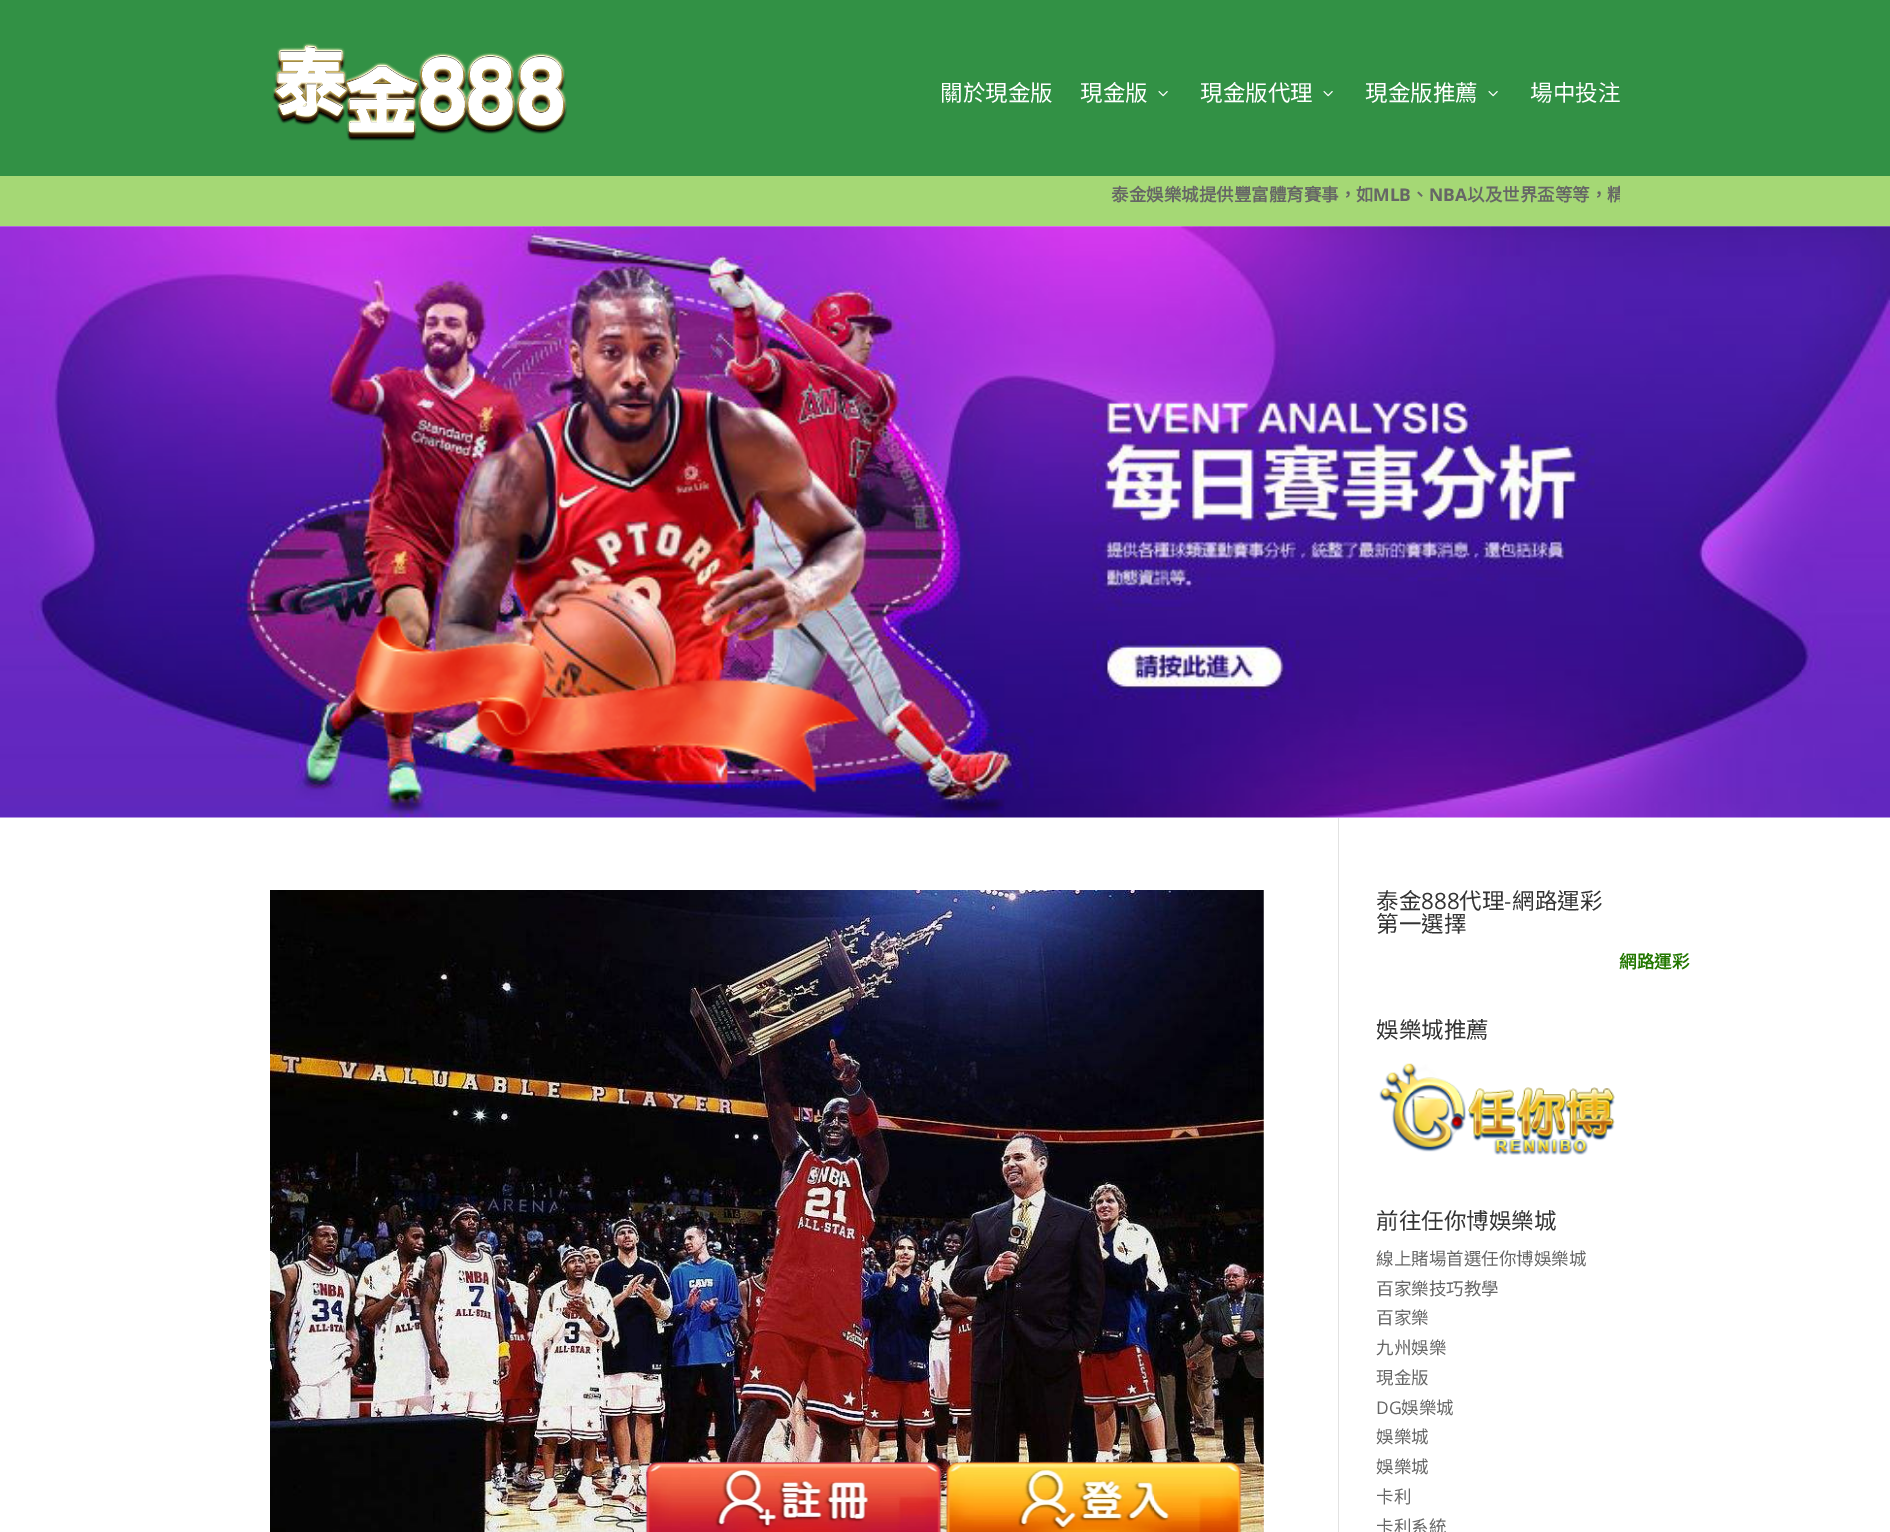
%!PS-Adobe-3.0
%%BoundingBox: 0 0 1890 1532
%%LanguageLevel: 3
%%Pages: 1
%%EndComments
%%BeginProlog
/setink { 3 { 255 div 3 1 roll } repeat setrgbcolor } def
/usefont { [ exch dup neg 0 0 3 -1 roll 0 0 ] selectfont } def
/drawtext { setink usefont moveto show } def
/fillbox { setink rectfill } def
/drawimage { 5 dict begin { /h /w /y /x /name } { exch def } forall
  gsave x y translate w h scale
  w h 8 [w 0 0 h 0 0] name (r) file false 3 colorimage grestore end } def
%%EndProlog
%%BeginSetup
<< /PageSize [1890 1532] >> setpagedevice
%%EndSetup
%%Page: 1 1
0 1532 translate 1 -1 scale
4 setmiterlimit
0 0 1890 1532 255 255 255 fillbox
0 0 1890 176 50 145 69 fillbox
(assets/img1.rgb) 272 43 295 98 drawimage
(關於現金版) 940 101 /NotoSansCJKTC-Regular 22.5 255 255 255 drawtext
(現金版) 1080 101 /NotoSansCJKTC-Regular 22.5 255 255 255 drawtext
(assets/img2.rgb) 1158 91 10 6 drawimage
(現金版代理) 1200 101 /NotoSansCJKTC-Regular 22.5 255 255 255 drawtext
(assets/img2.rgb) 1323 91 10 6 drawimage
(現金版推薦) 1365 101 /NotoSansCJKTC-Regular 22.5 255 255 255 drawtext
(assets/img2.rgb) 1488 91 10 6 drawimage
(場中投注) 1530 101 /NotoSansCJKTC-Regular 22.5 255 255 255 drawtext
0 176 1890 50 165 216 117 fillbox
(泰金娛樂城提供豐富體育賽事，如) 1111 201 /NotoSansCJKTC-Bold 17.5 102 102 102 drawtext
(MLB) 1373 201 /OpenSans-Bold 17.5 102 102 102 drawtext
(、) 1411 201 /NotoSansCJKTC-Bold 17.5 102 102 102 drawtext
(NBA) 1429 201 /OpenSans-Bold 17.5 102 102 102 drawtext
gsave
270 180 1350 30 rectclip
(以及世界盃等等，精) 1467 201 /NotoSansCJKTC-Bold 17.5 102 102 102 drawtext
grestore
(assets/img3.rgb) 0 226 1890 592 drawimage
(assets/img5.rgb) 270 890 994 642 drawimage
(assets/img4.rgb) 645 1461 597 71 drawimage
1338 818 1 714 226 226 226 fillbox
(泰金) 1376 909 /NotoSansCJKTC-Regular 22.5 51 51 51 drawtext
(888) 1421 909 /OpenSans-Regular 22.5 51 51 51 drawtext
(代理) 1459 909 /NotoSansCJKTC-Regular 22.5 51 51 51 drawtext
(-) 1504 909 /OpenSans-Regular 22.5 51 51 51 drawtext
(網路運彩) 1512 909 /NotoSansCJKTC-Regular 22.5 51 51 51 drawtext
(第一選擇) 1376 932 /NotoSansCJKTC-Regular 22.5 51 51 51 drawtext
(網路運彩) 1619 968 /NotoSansCJKTC-Bold 17.5 34 119 0 drawtext
(娛樂城推薦) 1376 1038 /NotoSansCJKTC-Regular 22.5 51 51 51 drawtext
(assets/img6.rgb) 1379 1063 236 92 drawimage
(前往任你博娛樂城) 1376 1229 /NotoSansCJKTC-Regular 22.5 51 51 51 drawtext
(線上賭場首選任你博娛樂城) 1376 1265 /NotoSansCJKTC-Regular 17.5 102 102 102 drawtext
(百家樂技巧教學) 1376 1295 /NotoSansCJKTC-Regular 17.5 102 102 102 drawtext
(百家樂) 1376 1324 /NotoSansCJKTC-Regular 17.5 102 102 102 drawtext
(九州娛樂) 1376 1354 /NotoSansCJKTC-Regular 17.5 102 102 102 drawtext
(現金版) 1376 1384 /NotoSansCJKTC-Regular 17.5 102 102 102 drawtext
(DG) 1376 1414 /OpenSans-Regular 17.5 102 102 102 drawtext
(娛樂城) 1401 1414 /NotoSansCJKTC-Regular 17.5 102 102 102 drawtext
(娛樂城) 1376 1443 /NotoSansCJKTC-Regular 17.5 102 102 102 drawtext
(娛樂城) 1376 1473 /NotoSansCJKTC-Regular 17.5 102 102 102 drawtext
(卡利) 1376 1503 /NotoSansCJKTC-Regular 17.5 102 102 102 drawtext
(卡利系統) 1376 1533 /NotoSansCJKTC-Regular 17.5 102 102 102 drawtext
showpage
%%EOF
